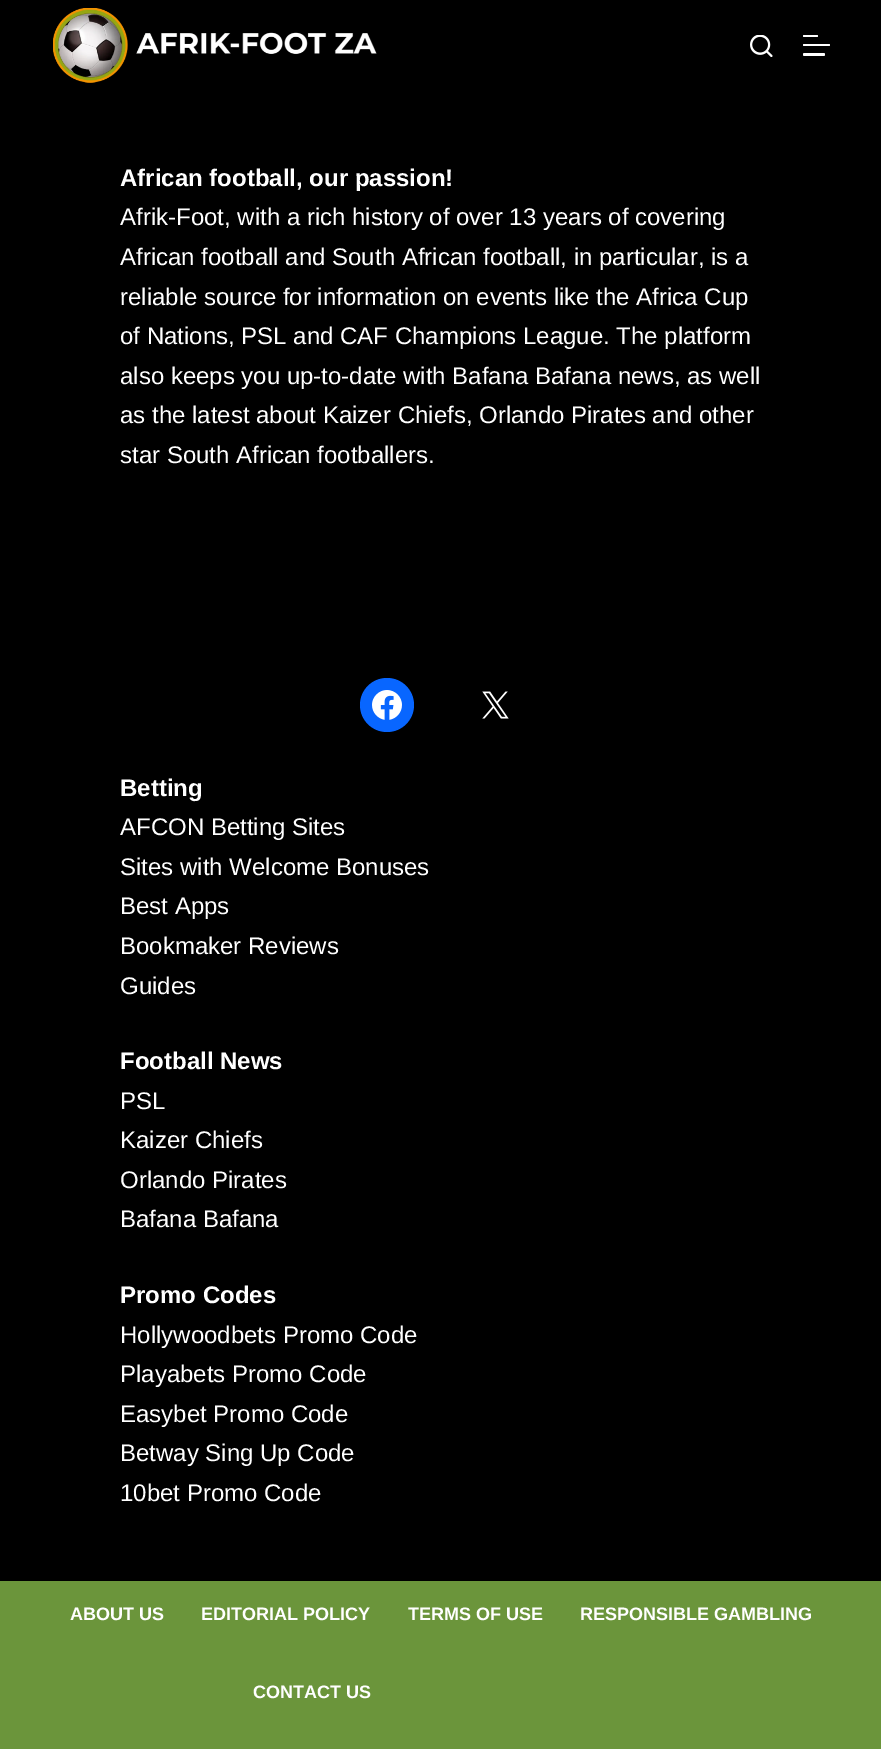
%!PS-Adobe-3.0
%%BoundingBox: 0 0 881 1749
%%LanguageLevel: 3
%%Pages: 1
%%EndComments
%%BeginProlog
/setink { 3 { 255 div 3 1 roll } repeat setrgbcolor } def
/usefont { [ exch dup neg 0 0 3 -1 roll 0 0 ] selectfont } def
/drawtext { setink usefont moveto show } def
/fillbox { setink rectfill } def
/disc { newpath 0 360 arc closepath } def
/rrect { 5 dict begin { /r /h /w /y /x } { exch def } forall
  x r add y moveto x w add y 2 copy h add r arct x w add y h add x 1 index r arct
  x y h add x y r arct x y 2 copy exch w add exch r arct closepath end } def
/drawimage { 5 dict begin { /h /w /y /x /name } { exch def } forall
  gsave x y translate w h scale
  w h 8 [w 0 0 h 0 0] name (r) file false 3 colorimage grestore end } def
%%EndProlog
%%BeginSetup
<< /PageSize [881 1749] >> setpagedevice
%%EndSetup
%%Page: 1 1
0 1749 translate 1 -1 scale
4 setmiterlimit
0 0 881 1749 0 0 0 fillbox
(assets/img1.rgb) 53 8 324 75 drawimage
(assets/img2.rgb) 750 35 23 22 drawimage
255 255 255 setink
803 35 15 2 1 rrect fill
803 44 27 2 1 rrect fill
803 53 22 3 1.5 rrect fill
(African football, our passion!) 120 186 /LiberationSans-Bold 24 255 255 255 drawtext
(Afrik-Foot, with a rich history of over 13 years of covering) 120 225 /LiberationSans-Regular 24 255 255 255 drawtext
(African football and South African football, in particular, is a) 120 265 /LiberationSans-Regular 24 255 255 255 drawtext
(reliable source for information on events like the Africa Cup) 120 305 /LiberationSans-Regular 24 255 255 255 drawtext
(of Nations, PSL and CAF Champions League. The platform) 120 344 /LiberationSans-Regular 24 255 255 255 drawtext
(also keeps you up-to-date with Bafana Bafana news, as well) 120 384 /LiberationSans-Regular 24 255 255 255 drawtext
(as the latest about Kaizer Chiefs, Orlando Pirates and other) 120 423 /LiberationSans-Regular 24 255 255 255 drawtext
(star South African footballers.) 120 463 /LiberationSans-Regular 24 255 255 255 drawtext
8 102 255 setink
387 705 27 disc fill
(assets/img3.rgb) 372 690 30 30 drawimage
(assets/img4.rgb) 482 691 27 28 drawimage
(Betting) 120 796 /LiberationSans-Bold 24 255 255 255 drawtext
(AFCON Betting Sites) 120 835 /LiberationSans-Regular 24 255 255 255 drawtext
(Sites with Welcome Bonuses) 120 875 /LiberationSans-Regular 24 255 255 255 drawtext
(Best Apps) 120 914 /LiberationSans-Regular 24 255 255 255 drawtext
(Bookmaker Reviews) 120 954 /LiberationSans-Regular 24 255 255 255 drawtext
(Guides) 120 994 /LiberationSans-Regular 24 255 255 255 drawtext
(Football News) 120 1069 /LiberationSans-Bold 24 255 255 255 drawtext
(PSL) 120 1109 /LiberationSans-Regular 24 255 255 255 drawtext
(Kaizer Chiefs) 120 1148 /LiberationSans-Regular 24 255 255 255 drawtext
(Orlando Pirates) 120 1188 /LiberationSans-Regular 24 255 255 255 drawtext
(Bafana Bafana) 120 1227 /LiberationSans-Regular 24 255 255 255 drawtext
(Promo Codes) 120 1303 /LiberationSans-Bold 24 255 255 255 drawtext
(Hollywoodbets Promo Code) 120 1343 /LiberationSans-Regular 24 255 255 255 drawtext
(Playabets Promo Code) 120 1382 /LiberationSans-Regular 24 255 255 255 drawtext
(Easybet Promo Code) 120 1422 /LiberationSans-Regular 24 255 255 255 drawtext
(Betway Sing Up Code) 120 1461 /LiberationSans-Regular 24 255 255 255 drawtext
(10bet Promo Code) 120 1501 /LiberationSans-Regular 24 255 255 255 drawtext
0 1581 881 168 107 149 59 fillbox
(ABOUT US) 70 1620 /LiberationSans-Bold 18 255 255 255 drawtext
(EDITORIAL POLICY) 201 1620 /LiberationSans-Bold 18 255 255 255 drawtext
(TERMS OF USE) 408 1620 /LiberationSans-Bold 18 255 255 255 drawtext
(RESPONSIBLE GAMBLING) 580 1620 /LiberationSans-Bold 18 255 255 255 drawtext
(CONTACT US) 253 1698 /LiberationSans-Bold 18 255 255 255 drawtext
showpage
%%EOF
